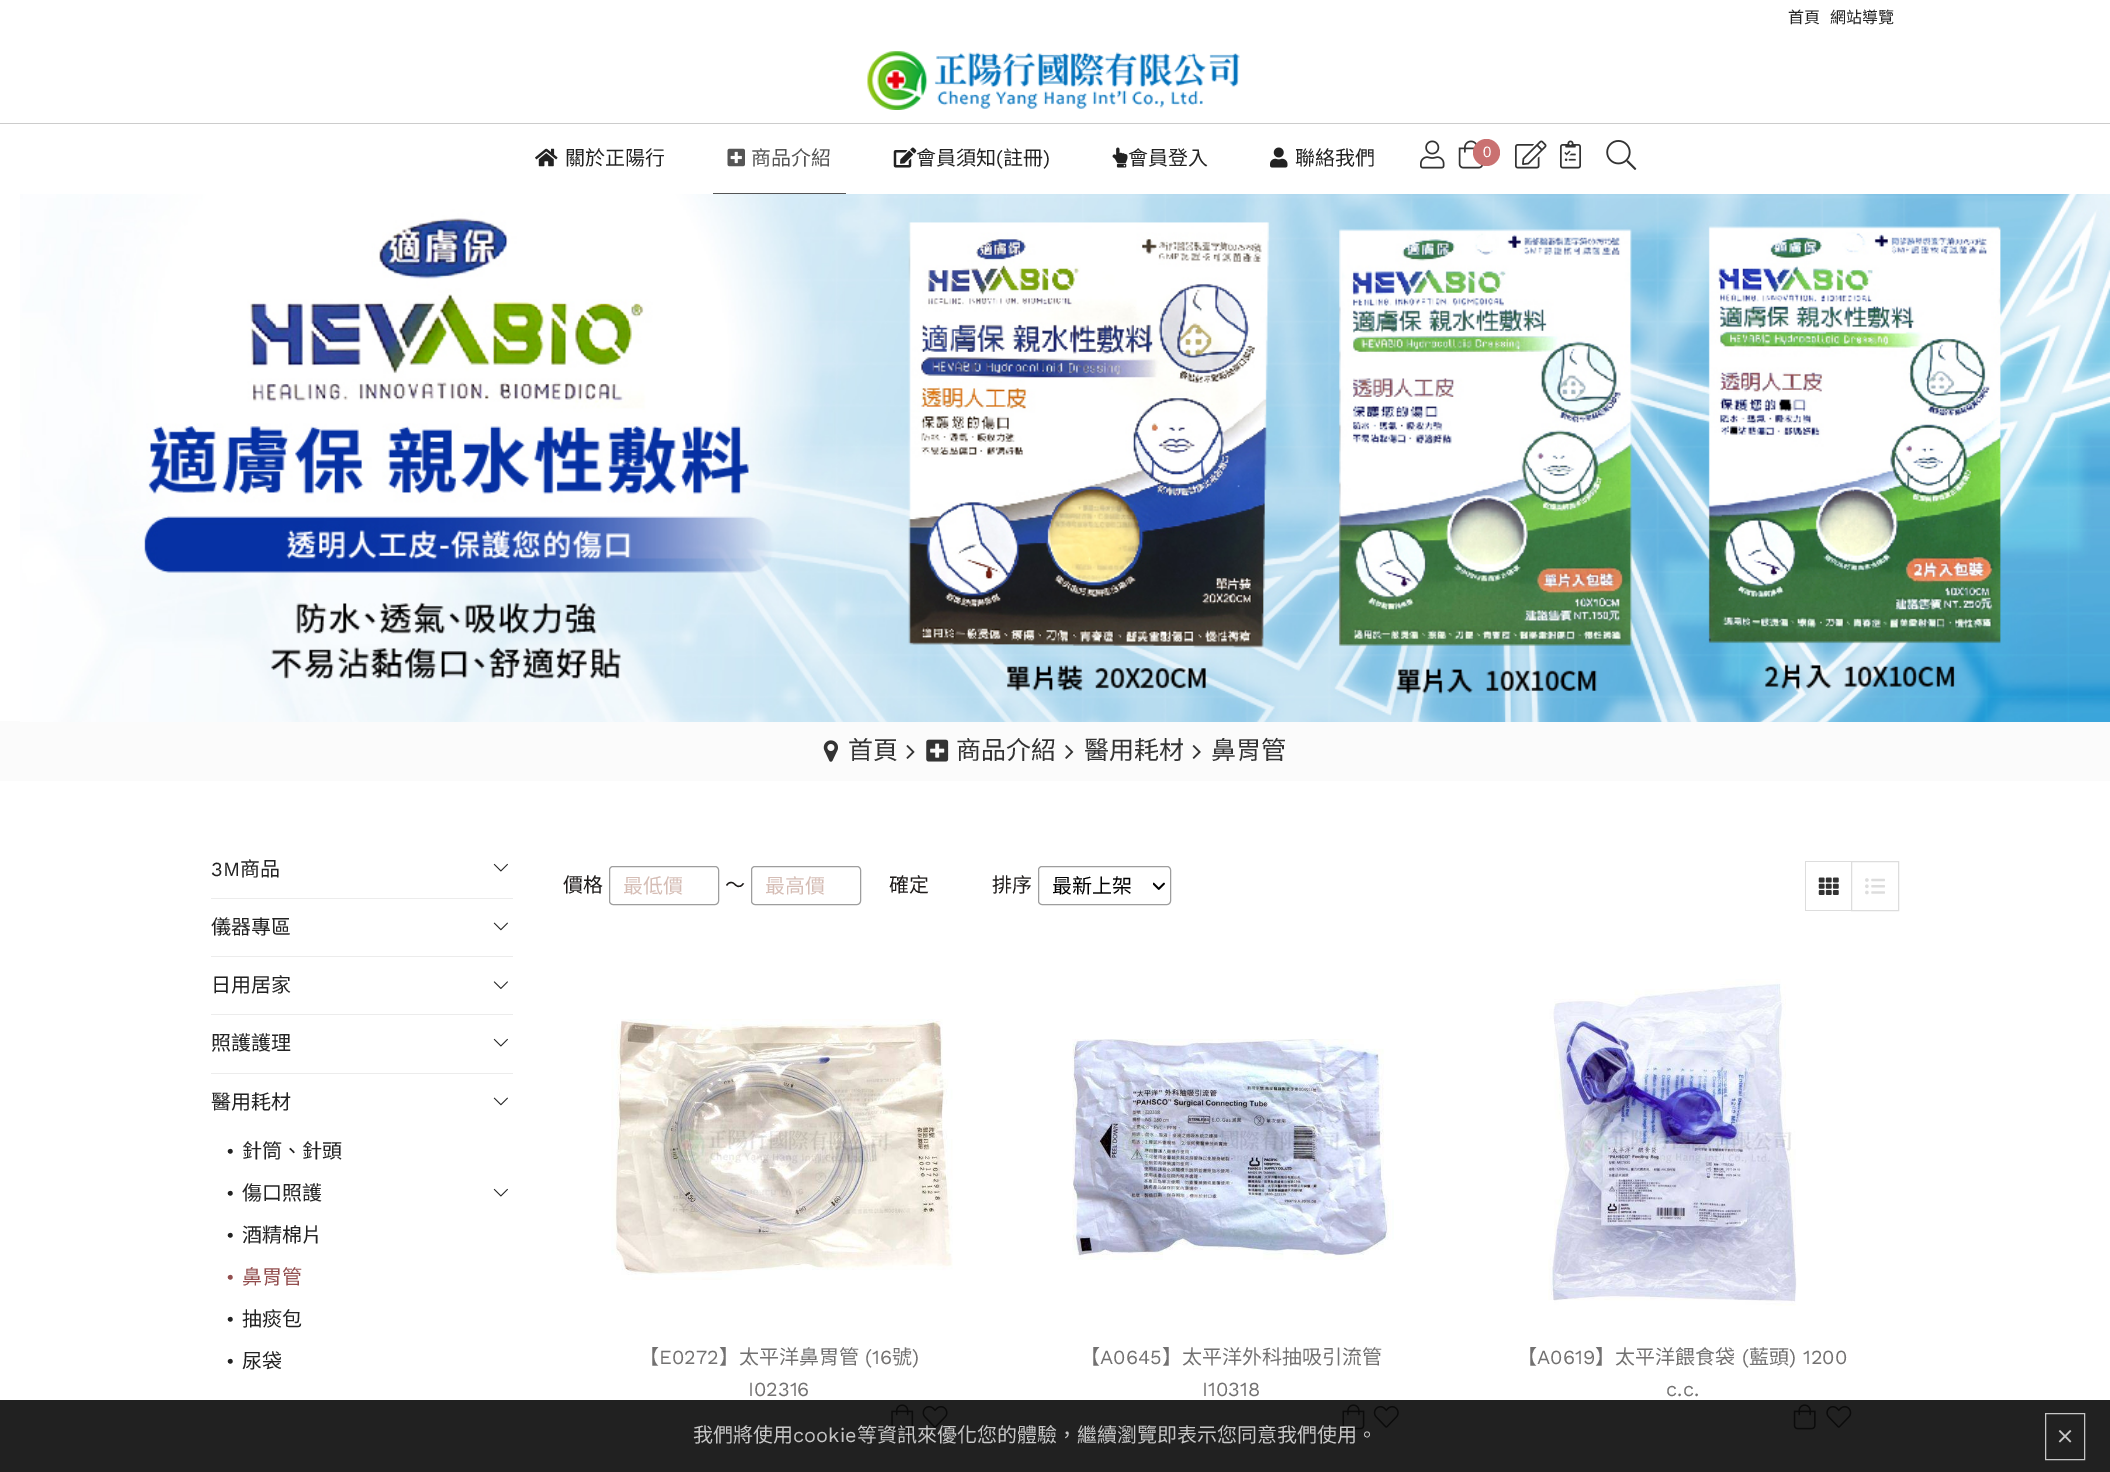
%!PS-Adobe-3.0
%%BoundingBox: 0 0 2110 1472
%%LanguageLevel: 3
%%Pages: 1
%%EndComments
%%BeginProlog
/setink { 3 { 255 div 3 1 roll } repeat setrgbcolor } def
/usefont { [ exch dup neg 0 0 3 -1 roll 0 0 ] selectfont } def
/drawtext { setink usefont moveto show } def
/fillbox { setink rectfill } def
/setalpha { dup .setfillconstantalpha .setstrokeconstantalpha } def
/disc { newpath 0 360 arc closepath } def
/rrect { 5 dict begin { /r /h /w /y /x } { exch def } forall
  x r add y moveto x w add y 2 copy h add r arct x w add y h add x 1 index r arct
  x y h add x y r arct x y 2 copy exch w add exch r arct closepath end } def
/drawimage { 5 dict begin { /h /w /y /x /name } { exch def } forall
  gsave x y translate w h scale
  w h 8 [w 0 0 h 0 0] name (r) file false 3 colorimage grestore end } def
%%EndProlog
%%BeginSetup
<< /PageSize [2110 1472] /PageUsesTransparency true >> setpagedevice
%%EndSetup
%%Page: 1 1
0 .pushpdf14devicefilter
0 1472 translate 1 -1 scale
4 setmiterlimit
0 0 2110 1472 255 255 255 fillbox
(首頁) 1788 23 /NotoSansCJKTC-Regular 16 34 34 34 drawtext
(網站導覽) 1830 23 /NotoSansCJKTC-Regular 16 34 34 34 drawtext
(assets/img1.rgb) 867 51 373 59 drawimage
0 123 2110 1 204 204 204 fillbox
(assets/img2.rgb) 535 148 23 19 drawimage
(關於正陽行) 565 165 /NotoSansTC-Thin 20 34 34 34 drawtext
(assets/img3.rgb) 727 148 18 19 drawimage
(商品介紹) 751 165 /NotoSansTC-Thin 20 85 85 85 drawtext
713 193 133 1 85 85 85 fillbox
(assets/img4.rgb) 893 147 24 21 drawimage
(會員須知) 916 165 /NotoSansTC-Thin 20 34 34 34 drawtext
(\() 996 165 /WorkSans-Regular 20 34 34 34 drawtext
(註冊) 1003 165 /NotoSansTC-Thin 20 34 34 34 drawtext
(\)) 1043 165 /WorkSans-Regular 20 34 34 34 drawtext
(assets/img5.rgb) 1112 147 16 21 drawimage
(會員登入) 1128 165 /NotoSansTC-Thin 20 34 34 34 drawtext
(assets/img6.rgb) 1270 147 18 21 drawimage
(聯絡我們) 1295 165 /NotoSansTC-Thin 20 34 34 34 drawtext
(assets/img7.rgb) 1420 140 25 29 drawimage
(assets/img8.rgb) 1458 140 26 29 drawimage
202 113 113 setink
1486.5 152.5 13.5 disc fill
(0) 1483 157 /LiberationSans-Regular 15 255 255 255 drawtext
(assets/img9.rgb) 1515 140 32 29 drawimage
(assets/img10.rgb) 1560 140 21 29 drawimage
(assets/img11.rgb) 1606 140 31 30 drawimage
0 721 2110 60 251 251 251 fillbox
(assets/img12.rgb) 20 194 2090 528 drawimage
(assets/img13.rgb) 823 740 15 22 drawimage
(首頁) 848 759 /NotoSansTC-Thin 25 51 51 51 drawtext
(assets/img14.rgb) 906 745 9 14 drawimage
(assets/img15.rgb) 926 739 23 23 drawimage
(商品介紹) 956 759 /NotoSansTC-Thin 25 51 51 51 drawtext
(assets/img16.rgb) 1065 745 9 14 drawimage
(醫用耗材) 1084 759 /NotoSansTC-Thin 25 51 51 51 drawtext
(assets/img17.rgb) 1192 745 9 14 drawimage
(鼻胃管) 1211 759 /NotoSansTC-Thin 25 51 51 51 drawtext
211 898 302 1 236 236 236 fillbox
(3M) 211 876 /WorkSans-Regular 20 34 34 34 drawtext
(商品) 240 876 /NotoSansTC-Thin 20 34 34 34 drawtext
(assets/img18.rgb) 493 863 15 9 drawimage
211 956 302 1 236 236 236 fillbox
(儀器專區) 211 934 /NotoSansTC-Thin 20 34 34 34 drawtext
(assets/img19.rgb) 493 922 15 9 drawimage
211 1014 302 1 236 236 236 fillbox
(日用居家) 211 992 /NotoSansTC-Thin 20 34 34 34 drawtext
(assets/img20.rgb) 493 981 15 8 drawimage
211 1073 302 1 236 236 236 fillbox
(照護護理) 211 1050 /NotoSansTC-Thin 20 34 34 34 drawtext
(assets/img18.rgb) 493 1038 15 9 drawimage
(醫用耗材) 211 1109 /NotoSansTC-Thin 20 34 34 34 drawtext
(assets/img19.rgb) 493 1097 15 9 drawimage
(•) 226 1158 /WorkSans-Regular 20 34 34 34 drawtext
(針筒、針頭) 242 1158 /NotoSansTC-Thin 20 34 34 34 drawtext
(•) 226 1200 /WorkSans-Regular 20 34 34 34 drawtext
(傷口照護) 242 1200 /NotoSansTC-Thin 20 34 34 34 drawtext
(assets/img18.rgb) 493 1188 15 9 drawimage
(•) 226 1242 /WorkSans-Regular 20 34 34 34 drawtext
(酒精棉片) 242 1242 /NotoSansTC-Thin 20 34 34 34 drawtext
(•) 226 1284 /WorkSans-Regular 20 146 78 78 drawtext
(鼻胃管) 242 1284 /NotoSansTC-Thin 20 146 78 78 drawtext
(•) 226 1326 /WorkSans-Regular 20 34 34 34 drawtext
(抽痰包) 242 1326 /NotoSansTC-Thin 20 34 34 34 drawtext
(•) 226 1368 /WorkSans-Regular 20 34 34 34 drawtext
(尿袋) 242 1368 /NotoSansTC-Thin 20 34 34 34 drawtext
(價格) 563 892 /NotoSansTC-Thin 20 30 27 26 drawtext
158 158 158 setink
609.5 866.5 109 38 3.5 rrect stroke
(最低價) 623 893 /NotoSansTC-Thin 20 213 189 181 drawtext
(～) 725 892 /NotoSansTC-Thin 20 30 27 26 drawtext
158 158 158 setink
751.5 866.5 109 38 3.5 rrect stroke
(最高價) 765 893 /NotoSansTC-Thin 20 213 189 181 drawtext
(確定) 889 892 /NotoSansTC-Thin 20 30 27 26 drawtext
(排序) 992 892 /NotoSansTC-Thin 20 30 27 26 drawtext
(assets/img21.rgb) 1153 882 12 8 drawimage
158 158 158 setink
1038.5 866.5 132 38 3.5 rrect stroke
(最新上架) 1052 893 /NotoSansTC-Thin 20 0 0 0 drawtext
1805 861 46 1 221 221 221 fillbox
1805 910 46 1 221 221 221 fillbox
1805 861 1 50 221 221 221 fillbox
(assets/img22.rgb) 1818 877 21 18 drawimage
1851.5 861.5 47 49 rectstroke
(assets/img23.rgb) 1865 878 20 17 drawimage
(assets/img24.rgb) 611 1019 342 261 drawimage
(【) 639 1364 /NotoSansTC-Thin 20 114 113 113 drawtext
(E0272) 659 1364 /WorkSans-Regular 20 114 113 113 drawtext
(】太平洋鼻胃管) 719 1364 /NotoSansTC-Thin 20 114 113 113 drawtext
(\(16) 865 1364 /WorkSans-Regular 20 114 113 113 drawtext
(號) 892 1364 /NotoSansTC-Thin 20 114 113 113 drawtext
(\)) 912 1364 /WorkSans-Regular 20 114 113 113 drawtext
(I02316) 748 1396 /WorkSans-Regular 20 114 113 113 drawtext
(assets/img25.rgb) 891 1404 23 26 drawimage
(assets/img26.rgb) 922 1405 26 23 drawimage
(assets/img27.rgb) 1072 1039 322 221 drawimage
(【) 1080 1364 /NotoSansTC-Thin 20 114 113 113 drawtext
(A0645) 1100 1364 /WorkSans-Regular 20 114 113 113 drawtext
(】太平洋外科抽吸引流管) 1162 1364 /NotoSansTC-Thin 20 114 113 113 drawtext
(I10318) 1202 1396 /WorkSans-Regular 20 114 113 113 drawtext
(assets/img28.rgb) 1342 1404 23 26 drawimage
(assets/img29.rgb) 1373 1405 26 23 drawimage
(assets/img30.rgb) 1548 979 249 327 drawimage
(【) 1517 1364 /NotoSansTC-Thin 20 114 113 113 drawtext
(A0619) 1537 1364 /WorkSans-Regular 20 114 113 113 drawtext
(】太平洋餵食袋) 1595 1364 /NotoSansTC-Thin 20 114 113 113 drawtext
(\() 1742 1364 /WorkSans-Regular 20 114 113 113 drawtext
(藍頭) 1749 1364 /NotoSansTC-Thin 20 114 113 113 drawtext
(\) 1200) 1789 1364 /WorkSans-Regular 20 114 113 113 drawtext
(c.c.) 1666 1396 /WorkSans-Regular 20 114 113 113 drawtext
(assets/img31.rgb) 1793 1404 23 26 drawimage
(assets/img32.rgb) 1826 1405 26 23 drawimage
0.89 setalpha
0 1400 2110 72 6 6 6 fillbox
1 setalpha
(我們將使用) 693 1442 /NotoSansTC-Thin 20 199 199 199 drawtext
(cookie) 793 1442 /WorkSans-Regular 20 199 199 199 drawtext
(等資訊來優化您的體驗，繼續瀏覽即表示您同意我們使用。) 857 1442 /NotoSansTC-Thin 20 199 199 199 drawtext
2045.5 1413.5 39 46 rectstroke
(assets/img33.rgb) 2058 1430 14 13 drawimage
.poppdf14devicefilter showpage
%%EOF
